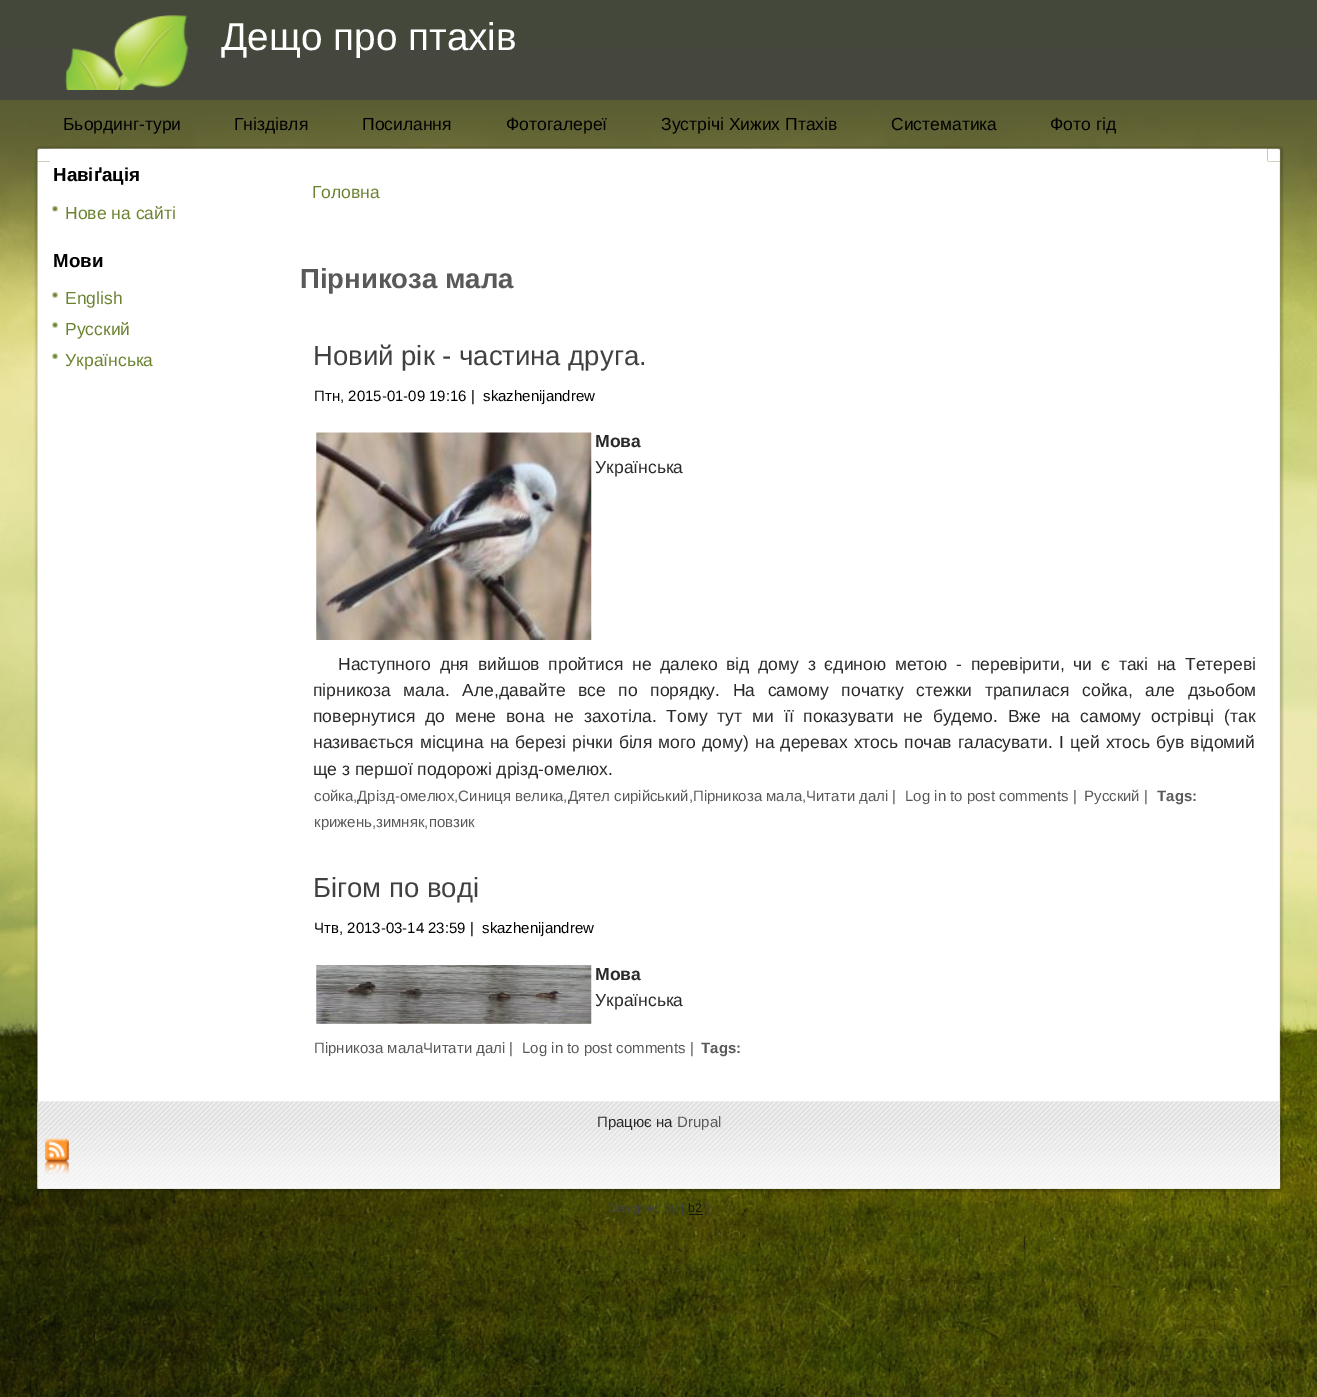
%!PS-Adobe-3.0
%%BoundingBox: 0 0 1317 1397
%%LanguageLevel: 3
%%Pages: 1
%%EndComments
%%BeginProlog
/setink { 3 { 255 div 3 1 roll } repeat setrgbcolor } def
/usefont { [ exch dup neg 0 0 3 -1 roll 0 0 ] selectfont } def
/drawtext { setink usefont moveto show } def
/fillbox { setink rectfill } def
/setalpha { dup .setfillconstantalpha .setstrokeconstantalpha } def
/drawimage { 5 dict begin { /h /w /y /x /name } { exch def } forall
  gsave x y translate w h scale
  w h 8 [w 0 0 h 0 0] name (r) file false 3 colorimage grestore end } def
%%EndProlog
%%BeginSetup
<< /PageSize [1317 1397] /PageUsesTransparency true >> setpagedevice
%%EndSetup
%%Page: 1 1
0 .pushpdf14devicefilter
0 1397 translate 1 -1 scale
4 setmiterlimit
0 0 1317 1397 86 104 39 fillbox
(assets/img1.rgb) 0 47 1317 1350 drawimage
0.8 setalpha
0 0 1317 100 64 64 64 fillbox
1 setalpha
(assets/img2.rgb) 65 15 124 75 drawimage
(Дещо про птахів) 221 50 /LiberationSans-Regular 38.75 255 255 255 drawtext
(Бьординг-тури) 63 130 /LiberationSans-Regular 17.5 0 0 0 drawtext
(Гніздівля) 234 130 /LiberationSans-Regular 17.5 0 0 0 drawtext
(Посилання) 362 130 /LiberationSans-Regular 17.5 0 0 0 drawtext
(Фотогалереї) 506 130 /LiberationSans-Regular 17.5 0 0 0 drawtext
(Зустрічі Хижих Птахів) 661 130 /LiberationSans-Regular 17.5 0 0 0 drawtext
(Систематика) 891 130 /LiberationSans-Regular 17.5 0 0 0 drawtext
(Фото гід) 1050 130 /LiberationSans-Regular 17.5 0 0 0 drawtext
(assets/img3.rgb) 35 146 15 16 drawimage
(assets/img5.rgb) 1267 146 17 16 drawimage
(assets/img4.rgb) 50 146 1218 15 drawimage
(assets/img18.rgb) 35 1176 15 16 drawimage
(assets/img6.rgb) 34 161 16 1016 drawimage
50 161 1218 966 255 255 255 fillbox
(assets/img20.rgb) 1267 1176 17 16 drawimage
(assets/img7.rgb) 1268 161 16 1016 drawimage
(Навіґація) 53 181 /LiberationSans-Bold 18.75 0 0 0 drawtext
(assets/img8.rgb) 52 206 6 6 drawimage
(Нове на сайті) 65 219 /LiberationSans-Regular 17.5 107 130 48 drawtext
(Мови) 53 267 /LiberationSans-Bold 18.75 0 0 0 drawtext
(assets/img9.rgb) 52 292 6 6 drawimage
(English) 65 304 /LiberationSans-Regular 17.5 107 130 48 drawtext
(assets/img9.rgb) 52 322 6 6 drawimage
(Русский) 65 335 /LiberationSans-Regular 17.5 107 130 48 drawtext
(assets/img10.rgb) 52 353 6 6 drawimage
(Українська) 65 366 /LiberationSans-Regular 17.5 107 130 48 drawtext
(Головна) 312 198 /LiberationSans-Regular 17.5 107 130 48 drawtext
(Пірникоза мала) 300 288 /LiberationSans-Bold 27.5 89 89 89 drawtext
(Новий рік - частина друга.) 313 365 /LiberationSans-Regular 27.5 64 64 64 drawtext
(Птн, 2015-01-09 19:16 |) 314 401 /LiberationSans-Regular 15 0 0 0 drawtext
(skazhenijandrew) 483 401 /LiberationSans-Regular 15 0 0 0 drawtext
(assets/img11.rgb) 316 432 276 208 drawimage
(Мова) 595 447 /LiberationSans-Bold 17.5 41 41 41 drawtext
(Українська) 595 473 /LiberationSans-Regular 17.5 41 41 41 drawtext
338 670 moveto 3.9 0 32 (Наступного дня вийшов пройтися не далеко від дому з єдиною метою - перевірити, чи є такі на Тетереві) widthshow
313 696 moveto 7.75 0 32 (пірникоза мала. Але,давайте все по порядку. На самому початку стежки трапилася сойка, але дзьобом) widthshow
313 722 moveto 5 0 32 (повернутися до мене вона не захотіла. Тому тут ми її показувати не будемо. Вже на самому острівці \(так) widthshow
313 748 moveto 1.25 0 32 (називається місцина на березі річки біля мого дому\) на деревах хтось почав галасувати. І цей хтось був відомий) widthshow
(ще з першої подорожі дрізд-омелюх.) 313 775 /LiberationSans-Regular 17.5 41 41 41 drawtext
(сойка,Дрізд-омелюх,Синиця велика,Дятел сирійський,Пірникоза мала,Читати далі) 314 801 /LiberationSans-Regular 15 89 89 89 drawtext
(крижень,зимняк,повзик) 314 827 /LiberationSans-Regular 15 89 89 89 drawtext
(Tags:) 1157 801 /LiberationSans-Bold 15 89 89 89 drawtext
(|) 892 801 /LiberationSans-Regular 15 89 89 89 drawtext
(Log in) 905 801 /LiberationSans-Regular 15 89 89 89 drawtext
(to post comments |) 950 801 /LiberationSans-Regular 15 89 89 89 drawtext
(Русский) 1084 801 /LiberationSans-Regular 15 89 89 89 drawtext
(|) 1144 801 /LiberationSans-Regular 15 89 89 89 drawtext
(Бігом по воді) 313 897 /LiberationSans-Regular 27.5 64 64 64 drawtext
(Чтв, 2013-03-14 23:59 |) 314 933 /LiberationSans-Regular 15 0 0 0 drawtext
(skazhenijandrew) 482 933 /LiberationSans-Regular 15 0 0 0 drawtext
(assets/img12.rgb) 316 965 276 59 drawimage
(Мова) 595 980 /LiberationSans-Bold 17.5 41 41 41 drawtext
(Українська) 595 1006 /LiberationSans-Regular 17.5 41 41 41 drawtext
(Пірникоза малаЧитати далі) 314 1053 /LiberationSans-Regular 15 89 89 89 drawtext
(Tags:) 701 1053 /LiberationSans-Bold 15 89 89 89 drawtext
(|) 509 1053 /LiberationSans-Regular 15 89 89 89 drawtext
(Log in) 522 1053 /LiberationSans-Regular 15 89 89 89 drawtext
(to post comments |) 567 1053 /LiberationSans-Regular 15 89 89 89 drawtext
(assets/img13.rgb) 37 1101 1243 26 drawimage
(assets/img15.rgb) 37 1126 2 63 drawimage
(assets/img19.rgb) 50 1188 1218 4 drawimage
(assets/img16.rgb) 38 1126 1241 63 drawimage
(Працює на) 597 1127 /LiberationSans-Regular 15 41 41 41 drawtext
(Drupal) 677 1127 /LiberationSans-Regular 15 89 89 89 drawtext
(assets/img14.rgb) 45 1138 24 36 drawimage
(assets/img17.rgb) 1279 1126 1 63 drawimage
(Designed by [) 608 1212 /LiberationSans-Regular 12.5 64 64 64 drawtext
(b2) 688 1212 /LiberationSans-Regular 12.5 20 20 20 drawtext
689 1214 14 1 20 20 20 fillbox
(]) 706 1212 /LiberationSans-Regular 12.5 64 64 64 drawtext
.poppdf14devicefilter showpage
%%EOF
